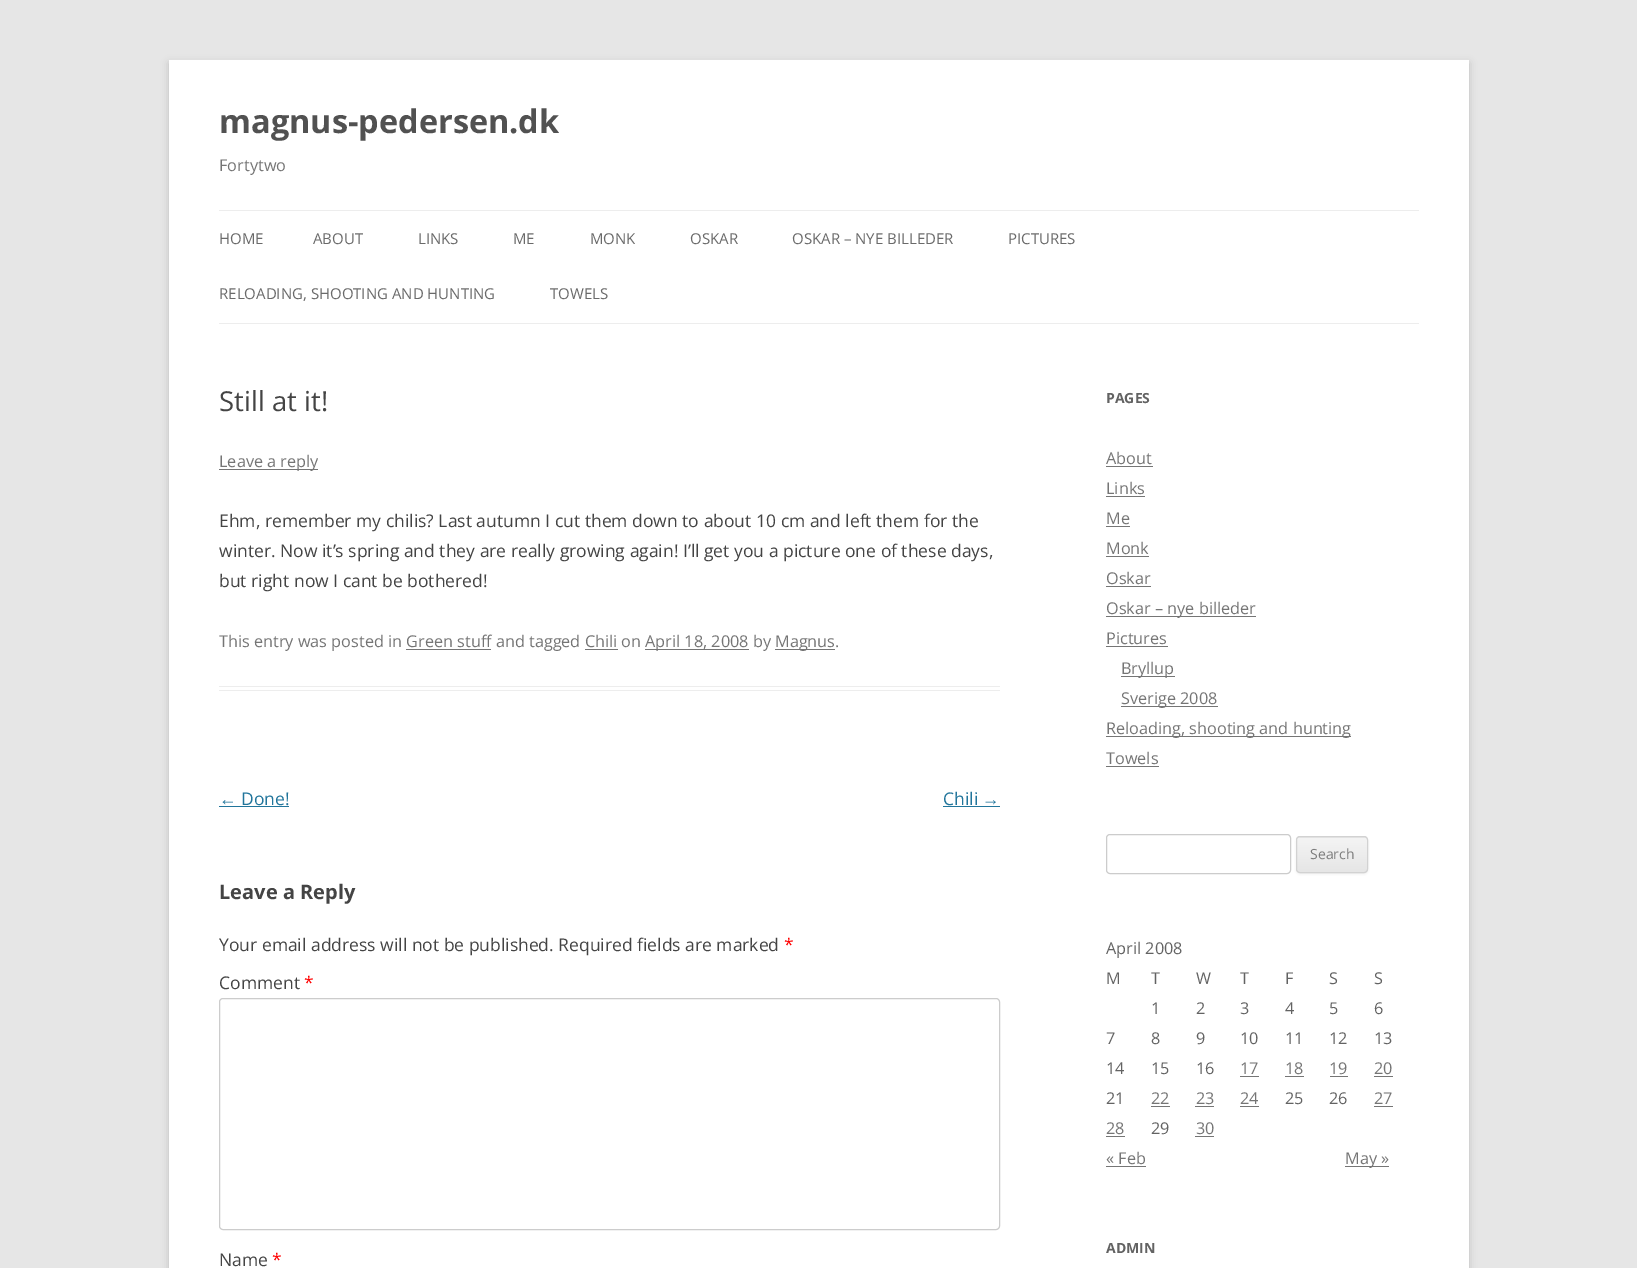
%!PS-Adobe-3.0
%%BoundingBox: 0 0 1637 1268
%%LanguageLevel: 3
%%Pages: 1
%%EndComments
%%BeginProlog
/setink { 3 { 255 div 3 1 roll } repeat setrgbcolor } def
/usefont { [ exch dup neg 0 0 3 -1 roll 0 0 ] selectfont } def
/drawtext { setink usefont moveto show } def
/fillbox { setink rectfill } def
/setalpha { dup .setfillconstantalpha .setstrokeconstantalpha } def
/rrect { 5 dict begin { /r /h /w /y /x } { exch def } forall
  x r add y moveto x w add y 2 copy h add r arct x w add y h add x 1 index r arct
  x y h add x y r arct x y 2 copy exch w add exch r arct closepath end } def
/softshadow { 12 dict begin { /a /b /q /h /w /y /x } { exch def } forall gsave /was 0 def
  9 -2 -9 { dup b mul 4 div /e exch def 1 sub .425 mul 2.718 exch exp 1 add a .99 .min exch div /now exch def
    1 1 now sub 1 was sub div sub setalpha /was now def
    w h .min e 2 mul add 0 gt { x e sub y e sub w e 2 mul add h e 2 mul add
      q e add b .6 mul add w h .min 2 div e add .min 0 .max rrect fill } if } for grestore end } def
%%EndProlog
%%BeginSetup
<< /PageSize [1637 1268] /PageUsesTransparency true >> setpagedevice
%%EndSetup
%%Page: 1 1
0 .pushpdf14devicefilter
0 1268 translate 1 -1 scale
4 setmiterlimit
0 0 1637 1268 230 230 230 fillbox
100 100 100 setink
169 63 1300 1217 0 4 0.3 softshadow
169 60 1300 1208 255 255 255 fillbox
(magnus-pedersen.dk) 219 133 /OpenSans-Bold 32.5 81 81 81 drawtext
(Fortytwo) 219 171 /OpenSans-Regular 16.25 117 117 117 drawtext
219 210 1200 1 237 237 237 fillbox
219 323 1200 1 237 237 237 fillbox
(HOME) 219 244 /OpenSans-Regular 15 106 106 106 drawtext
(ABOUT) 313 244 /OpenSans-Regular 15 106 106 106 drawtext
(LINKS) 418 244 /OpenSans-Regular 15 106 106 106 drawtext
(ME) 513 244 /OpenSans-Regular 15 106 106 106 drawtext
(MONK) 590 244 /OpenSans-Regular 15 106 106 106 drawtext
(OSKAR) 690 244 /OpenSans-Regular 15 106 106 106 drawtext
(OSKAR – NYE BILLEDER) 792 244 /OpenSans-Regular 15 106 106 106 drawtext
(PICTURES) 1008 244 /OpenSans-Regular 15 106 106 106 drawtext
(RELOADING, SHOOTING AND HUNTING) 219 299 /OpenSans-Regular 15 106 106 106 drawtext
(TOWELS) 550 299 /OpenSans-Regular 15 106 106 106 drawtext
219 686 781 1 237 237 237 fillbox
219 690 781 1 237 237 237 fillbox
(Still at it!) 219 411 /OpenSans-Regular 27.5 68 68 68 drawtext
219 469 99 1 117 117 117 fillbox
(Leave a reply) 219 467 /OpenSans-Regular 16.25 117 117 117 drawtext
(Ehm, remember my chilis? Last autumn I cut them down to about 10 cm and left them for the) 219 527 /OpenSans-Regular 17.5 68 68 68 drawtext
(winter. Now it’s spring and they are really growing again! I’ll get you a picture one of these days,) 219 557 /OpenSans-Regular 17.5 68 68 68 drawtext
(but right now I cant be bothered!) 219 587 /OpenSans-Regular 17.5 68 68 68 drawtext
(This entry was posted in Green stuff and tagged Chili on) 219 647 /OpenSans-Regular 16.25 117 117 117 drawtext
645 649 104 1 117 117 117 fillbox
(April 18, 2008 by) 645 647 /OpenSans-Regular 16.25 117 117 117 drawtext
775 649 60 1 117 117 117 fillbox
(Magnus.) 775 647 /OpenSans-Regular 16.25 117 117 117 drawtext
406 649 85 1 117 117 117 fillbox
585 649 33 1 117 117 117 fillbox
(←) 219 805 /LiberationSans-Regular 17.5 33 117 155 drawtext
219 806 70 1 33 117 155 fillbox
(Done!) 241 805 /OpenSans-Regular 17.5 33 117 155 drawtext
(Chili) 943 805 /OpenSans-Regular 17.5 33 117 155 drawtext
(→) 982 805 /LiberationSans-Regular 17.5 33 117 155 drawtext
943 806 57 1 33 117 155 fillbox
(Leave a Reply) 219 899 /OpenSans-Bold 20 68 68 68 drawtext
(Your email address will not be published. Required fields are marked) 219 951 /OpenSans-Regular 17.5 68 68 68 drawtext
(*) 784 951 /OpenSans-Regular 17.5 255 0 0 drawtext
(Comment) 219 989 /OpenSans-Regular 17.5 68 68 68 drawtext
(*) 304 989 /OpenSans-Regular 17.5 255 0 0 drawtext
204 204 204 setink
219.5 998.5 780 231 3.5 rrect stroke
(Name) 219 1266 /OpenSans-Regular 17.5 68 68 68 drawtext
(*) 272 1266 /OpenSans-Regular 17.5 255 0 0 drawtext
(PAGES) 1106 403 /OpenSans-Bold 14 99 99 99 drawtext
(About) 1106 464 /OpenSans-Regular 16.25 117 117 117 drawtext
1106 466 47 1 117 117 117 fillbox
(Links) 1106 494 /OpenSans-Regular 16.25 117 117 117 drawtext
1106 496 39 1 117 117 117 fillbox
(Me) 1106 524 /OpenSans-Regular 16.25 117 117 117 drawtext
1106 526 24 1 117 117 117 fillbox
(Monk) 1106 554 /OpenSans-Regular 16.25 117 117 117 drawtext
1106 556 43 1 117 117 117 fillbox
(Oskar) 1106 584 /OpenSans-Regular 16.25 117 117 117 drawtext
1106 586 45 1 117 117 117 fillbox
1106 616 150 1 117 117 117 fillbox
(Oskar – nye billeder) 1106 614 /OpenSans-Regular 16.25 117 117 117 drawtext
(Pictures) 1106 644 /OpenSans-Regular 16.25 117 117 117 drawtext
1106 646 62 1 117 117 117 fillbox
1121 676 54 1 117 117 117 fillbox
(Bryllup) 1121 674 /OpenSans-Regular 16.25 117 117 117 drawtext
1121 706 97 1 117 117 117 fillbox
(Sverige 2008) 1121 704 /OpenSans-Regular 16.25 117 117 117 drawtext
1106 736 245 1 117 117 117 fillbox
(Reloading, shooting and hunting) 1106 734 /OpenSans-Regular 16.25 117 117 117 drawtext
(Towels) 1106 764 /OpenSans-Regular 16.25 117 117 117 drawtext
1106 766 53 1 117 117 117 fillbox
204 204 204 setink
1106.5 834.5 184 39 3.5 rrect stroke
64 64 64 setink
1296 838 72 36 4 1 0.1 softshadow
230 230 230 setink
1296 836 72 37 4 rrect fill
gsave
1296 836 72 37 4 rrect clip newpath
gsave 1296 838 moveto 1368 838 lineto 1368 871 lineto 1296 871 lineto closepath clip newpath
<< /ShadingType 2 /ColorSpace /DeviceRGB /Coords [1332 838 1332 871] /Extend [true true] /Function << /FunctionType 2 /Domain [0 1] /C0 [0.957 0.957 0.957] /C1 [0.902 0.902 0.902] /N 1 >> >> shfill grestore
grestore
210 210 210 setink
1296.5 836.5 71 36 3.5 rrect stroke
(Search) 1310 859 /OpenSans-Regular 14 124 124 124 drawtext
(April 2008) 1106 954 /OpenSans-Regular 16.25 99 99 99 drawtext
(M) 1106 984 /OpenSans-Regular 16.25 99 99 99 drawtext
(T) 1151 984 /OpenSans-Regular 16.25 99 99 99 drawtext
(W) 1196 984 /OpenSans-Regular 16.25 99 99 99 drawtext
(T) 1240 984 /OpenSans-Regular 16.25 99 99 99 drawtext
(F) 1285 984 /OpenSans-Regular 16.25 99 99 99 drawtext
(S) 1329 984 /OpenSans-Regular 16.25 99 99 99 drawtext
(S) 1374 984 /OpenSans-Regular 16.25 99 99 99 drawtext
(1) 1151 1014 /OpenSans-Regular 16.25 99 99 99 drawtext
(2) 1196 1014 /OpenSans-Regular 16.25 99 99 99 drawtext
(3) 1240 1014 /OpenSans-Regular 16.25 99 99 99 drawtext
(4) 1285 1014 /OpenSans-Regular 16.25 99 99 99 drawtext
(5) 1329 1014 /OpenSans-Regular 16.25 99 99 99 drawtext
(6) 1374 1014 /OpenSans-Regular 16.25 99 99 99 drawtext
(7) 1106 1044 /OpenSans-Regular 16.25 99 99 99 drawtext
(8) 1151 1044 /OpenSans-Regular 16.25 99 99 99 drawtext
(9) 1196 1044 /OpenSans-Regular 16.25 99 99 99 drawtext
(10) 1240 1044 /OpenSans-Regular 16.25 99 99 99 drawtext
(11) 1285 1044 /OpenSans-Regular 16.25 99 99 99 drawtext
(12) 1329 1044 /OpenSans-Regular 16.25 99 99 99 drawtext
(13) 1374 1044 /OpenSans-Regular 16.25 99 99 99 drawtext
(14) 1106 1074 /OpenSans-Regular 16.25 99 99 99 drawtext
(15) 1151 1074 /OpenSans-Regular 16.25 99 99 99 drawtext
(16) 1196 1074 /OpenSans-Regular 16.25 99 99 99 drawtext
(17) 1240 1074 /OpenSans-Regular 16.25 117 117 117 drawtext
1240 1076 19 1 117 117 117 fillbox
(18) 1285 1074 /OpenSans-Regular 16.25 117 117 117 drawtext
1285 1076 19 1 117 117 117 fillbox
(19) 1329 1074 /OpenSans-Regular 16.25 117 117 117 drawtext
1330 1076 18 1 117 117 117 fillbox
(20) 1374 1074 /OpenSans-Regular 16.25 117 117 117 drawtext
1374 1076 19 1 117 117 117 fillbox
(21) 1106 1104 /OpenSans-Regular 16.25 99 99 99 drawtext
(22) 1151 1104 /OpenSans-Regular 16.25 117 117 117 drawtext
1151 1106 19 1 117 117 117 fillbox
(23) 1196 1104 /OpenSans-Regular 16.25 117 117 117 drawtext
1195 1106 19 1 117 117 117 fillbox
(24) 1240 1104 /OpenSans-Regular 16.25 117 117 117 drawtext
1240 1106 19 1 117 117 117 fillbox
(25) 1285 1104 /OpenSans-Regular 16.25 99 99 99 drawtext
(26) 1329 1104 /OpenSans-Regular 16.25 99 99 99 drawtext
(27) 1374 1104 /OpenSans-Regular 16.25 117 117 117 drawtext
1374 1106 19 1 117 117 117 fillbox
(28) 1106 1134 /OpenSans-Regular 16.25 117 117 117 drawtext
1106 1136 19 1 117 117 117 fillbox
(29) 1151 1134 /OpenSans-Regular 16.25 99 99 99 drawtext
(30) 1196 1134 /OpenSans-Regular 16.25 117 117 117 drawtext
1195 1136 19 1 117 117 117 fillbox
(« Feb) 1106 1164 /OpenSans-Regular 16.25 117 117 117 drawtext
1106 1166 40 1 117 117 117 fillbox
1345 1166 44 1 117 117 117 fillbox
(May ») 1345 1164 /OpenSans-Regular 16.25 117 117 117 drawtext
(ADMIN) 1106 1253 /OpenSans-Bold 14 99 99 99 drawtext
.poppdf14devicefilter showpage
%%EOF
